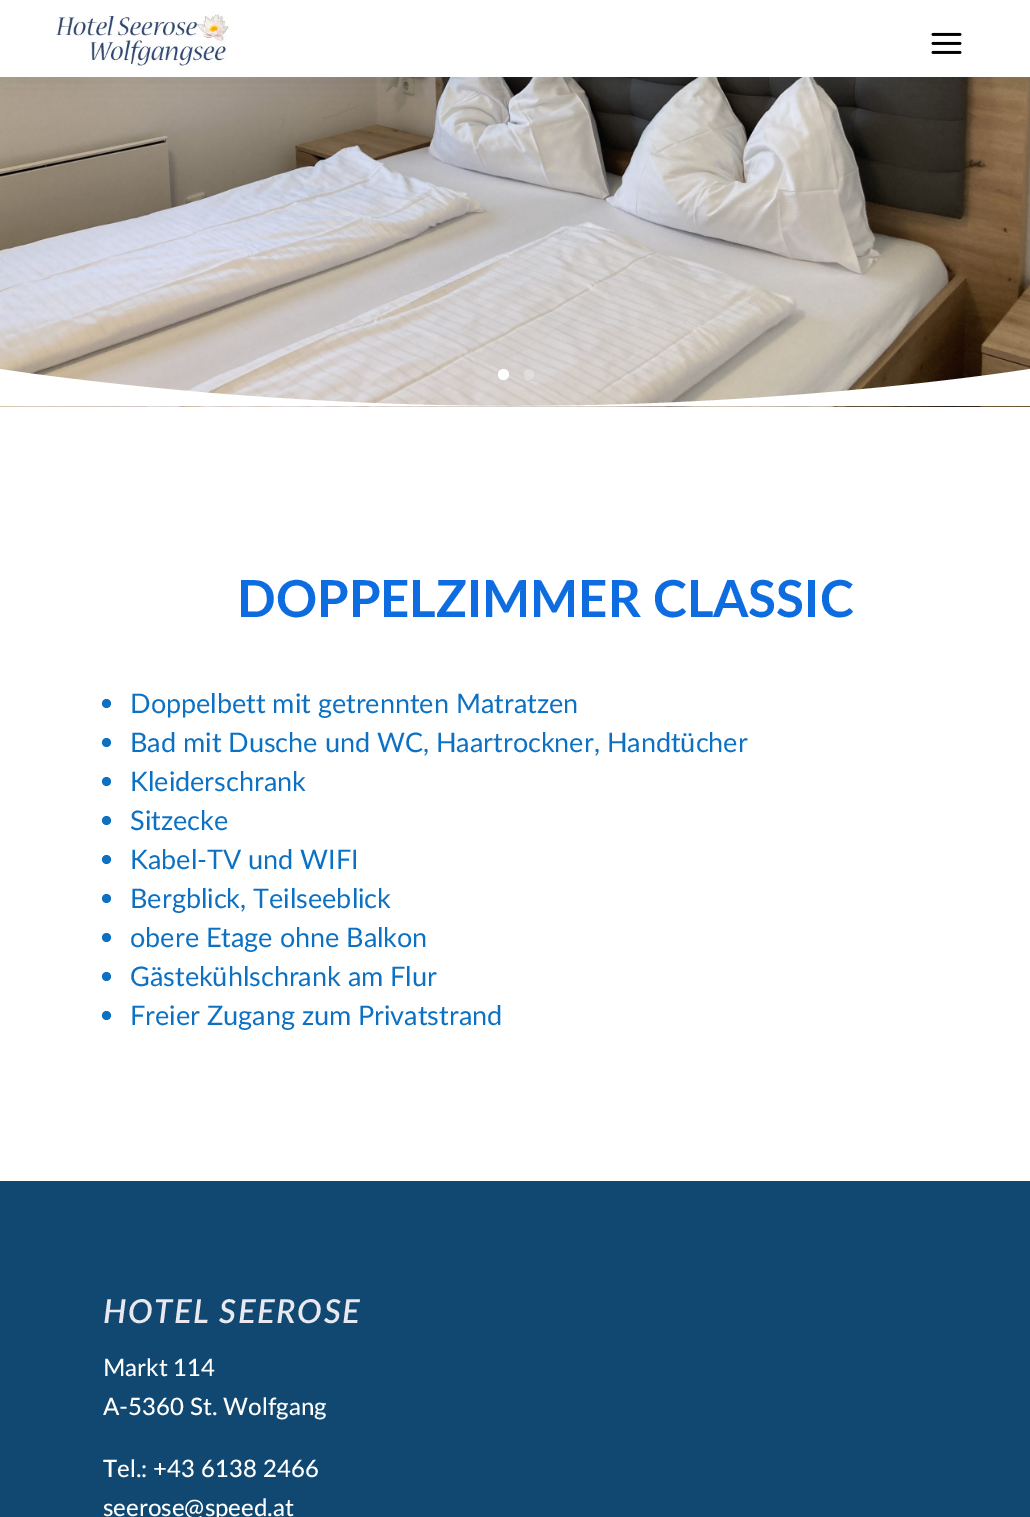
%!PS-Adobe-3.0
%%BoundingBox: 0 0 1030 1517
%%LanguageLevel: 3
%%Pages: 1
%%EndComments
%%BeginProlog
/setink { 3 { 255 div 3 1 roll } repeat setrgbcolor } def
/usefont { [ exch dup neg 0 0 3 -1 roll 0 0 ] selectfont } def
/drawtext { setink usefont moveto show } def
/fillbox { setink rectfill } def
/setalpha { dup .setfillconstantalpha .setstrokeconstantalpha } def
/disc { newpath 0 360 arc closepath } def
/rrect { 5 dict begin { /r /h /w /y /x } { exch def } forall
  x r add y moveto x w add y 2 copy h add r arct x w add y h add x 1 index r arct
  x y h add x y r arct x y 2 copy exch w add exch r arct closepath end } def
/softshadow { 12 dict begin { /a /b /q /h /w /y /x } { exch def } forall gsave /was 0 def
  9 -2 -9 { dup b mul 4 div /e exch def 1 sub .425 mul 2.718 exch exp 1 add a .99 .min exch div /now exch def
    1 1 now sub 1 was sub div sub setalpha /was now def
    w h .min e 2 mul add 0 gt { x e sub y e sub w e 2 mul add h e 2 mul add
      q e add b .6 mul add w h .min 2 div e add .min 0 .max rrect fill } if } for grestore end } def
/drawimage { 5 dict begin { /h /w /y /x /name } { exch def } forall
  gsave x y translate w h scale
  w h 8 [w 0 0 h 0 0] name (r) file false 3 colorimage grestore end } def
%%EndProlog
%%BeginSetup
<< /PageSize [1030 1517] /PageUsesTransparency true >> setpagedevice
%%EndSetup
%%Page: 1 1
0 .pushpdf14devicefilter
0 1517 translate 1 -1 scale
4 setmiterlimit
0 0 1030 1517 255 255 255 fillbox
(assets/img3.rgb) 0 77 1030 330 drawimage
0 0 0 setink
0 3 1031 77 0 13.5 0.13 softshadow
0 0 1030 77 255 255 255 fillbox
(assets/img1.rgb) 55 11 176 58 drawimage
(assets/img2.rgb) 931 32 31 22 drawimage
503.5 374.5 5.5 disc fill
0.25 setalpha
524 369 10 11 5 rrect fill
1 setalpha
1030 406 moveto 1030 369 lineto 1030 369 800 406 515 406 curveto 231 406 0 369 0 369 curveto 0 406 lineto closepath fill
(DOPPELZIMMER CLASSIC) 237 617 /Lato-Bold 51 13 108 224 drawtext
12 113 195 setink
106.5 703.5 4.5 disc fill
(Doppelbett mit getrennten Matratzen) 130 713 /Lato-Regular 27 12 113 195 drawtext
106.5 742.5 4.5 disc fill
(Bad mit Dusche und WC, Haartrockner, Handtücher) 130 752 /Lato-Regular 27 12 113 195 drawtext
106.5 781.5 4.5 disc fill
(Kleiderschrank) 130 791 /Lato-Regular 27 12 113 195 drawtext
106.5 820.5 4.5 disc fill
(Sitzecke) 130 830 /Lato-Regular 27 12 113 195 drawtext
106.5 859.5 4.5 disc fill
(Kabel-TV und WIFI) 130 869 /Lato-Regular 27 12 113 195 drawtext
106.5 898.5 4.5 disc fill
(Bergblick, Teilseeblick) 130 908 /Lato-Regular 27 12 113 195 drawtext
106.5 937.5 4.5 disc fill
(obere Etage ohne Balkon) 130 947 /Lato-Regular 27 12 113 195 drawtext
106.5 976.5 4.5 disc fill
(Gästekühlschrank am Flur) 130 986 /Lato-Regular 27 12 113 195 drawtext
106.5 1015.5 4.5 disc fill
(Freier Zugang zum Privatstrand) 130 1025 /Lato-Regular 27 12 113 195 drawtext
0 1181 1030 336 16 72 114 fillbox
/Lato-SemiBoldItalic 33 usefont
233 232 238 setink
103 1323 moveto 1.5 0 (HOTEL SEEROSE) ashow
(Markt 114) 103 1376 /Lato-Medium 24 255 255 255 drawtext
(A-5360 St. Wolfgang) 103 1415 /Lato-Medium 24 255 255 255 drawtext
(Tel.: +43 6138 2466) 103 1477 /Lato-Medium 24 255 255 255 drawtext
(seerose@speed.at) 103 1516 /Lato-Medium 24 255 255 255 drawtext
.poppdf14devicefilter showpage
%%EOF
